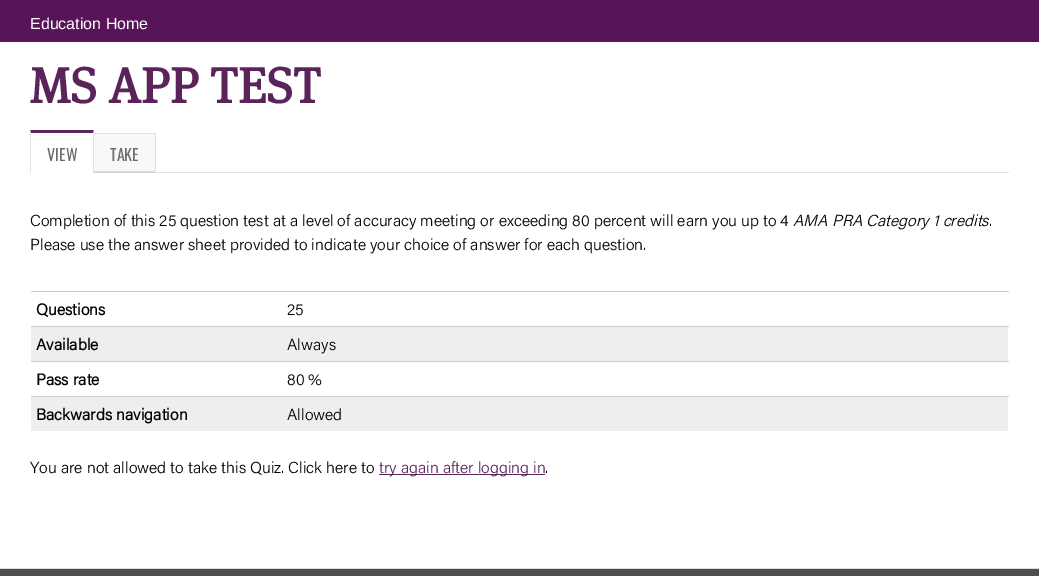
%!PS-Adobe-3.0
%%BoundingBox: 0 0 1039 576
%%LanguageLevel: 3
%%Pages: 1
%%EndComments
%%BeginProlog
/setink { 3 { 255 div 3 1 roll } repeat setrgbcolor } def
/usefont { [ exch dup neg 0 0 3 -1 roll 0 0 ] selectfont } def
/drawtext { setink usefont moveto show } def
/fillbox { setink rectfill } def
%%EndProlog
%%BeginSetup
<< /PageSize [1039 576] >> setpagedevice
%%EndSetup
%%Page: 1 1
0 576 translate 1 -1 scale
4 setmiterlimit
0 0 1039 576 255 255 255 fillbox
0 0 1039 42 87 20 89 fillbox
(Education Home) 30 29 /LiberationSans-Regular 16 255 255 255 drawtext
(MS APP TEST) 30 103 /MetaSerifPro-Bold 50 90 36 90 drawtext
156 172 853 1 225 225 225 fillbox
90 36 90 setink
30 130 moveto 94 130 lineto 93 133 lineto 31 133 lineto closepath fill
225 225 225 setink
94 130 moveto 94 173 lineto 93 173 lineto 93 133 lineto closepath fill
30 173 moveto 30 130 lineto 31 133 lineto 31 173 lineto closepath fill
(VIEW) 47 161 /Oswald-Regular 16 109 109 109 drawtext
gsave 94 134 moveto 155 134 lineto 155 173 lineto 94 173 lineto closepath clip newpath
<< /ShadingType 2 /ColorSpace /DeviceRGB /Coords [125 173 125 134] /Extend [true true] /Function << /FunctionType 3 /Domain [0 1] /Functions [<< /FunctionType 2 /Domain [0 1] /C0 [0.776 0.776 0.784] /C1 [0.973 0.973 0.98] /N 1 >> << /FunctionType 2 /Domain [0 1] /C0 [0.973 0.973 0.98] /C1 [0.973 0.973 0.98] /N 1 >>] /Bounds [0.07] /Encode [0 1 0 1] >> >> shfill grestore
93 133 63 1 225 225 225 fillbox
155 133 1 40 225 225 225 fillbox
(TAKE) 110 161 /Oswald-Regular 16 109 109 109 drawtext
(Completion of this 25 question test at a level of accuracy meeting or exceeding 80 percent will earn you up to 4) 30 226 /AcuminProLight-Light 16 0 0 0 drawtext
(AMA PRA Category 1 credits) 793 226 /AcuminProLight-LightItalic 16 0 0 0 drawtext
(.) 989 226 /AcuminProLight-Light 16 0 0 0 drawtext
(Please use the answer sheet provided to indicate your choice of answer for each question.) 30 250 /AcuminProLight-Light 16 0 0 0 drawtext
31 291 978 1 204 204 204 fillbox
(Questions) 36 315 /AcuminProLight-Bold 16 0 0 0 drawtext
(25) 287 315 /AcuminProLight-Light 16 0 0 0 drawtext
31 327 977 34 238 238 238 fillbox
31 326 978 1 204 204 204 fillbox
(Available) 36 350 /AcuminProLight-Bold 16 0 0 0 drawtext
(Always) 287 350 /AcuminProLight-Light 16 0 0 0 drawtext
31 361 978 1 204 204 204 fillbox
(Pass rate) 36 385 /AcuminProLight-Bold 16 0 0 0 drawtext
(80 %) 287 385 /AcuminProLight-Light 16 0 0 0 drawtext
31 397 977 34 238 238 238 fillbox
31 396 978 1 204 204 204 fillbox
(Backwards navigation) 36 420 /AcuminProLight-Bold 16 0 0 0 drawtext
(Allowed) 287 420 /AcuminProLight-Light 16 0 0 0 drawtext
(You are not allowed to take this Quiz. Click here to) 30 473 /AcuminProLight-Light 16 0 0 0 drawtext
379 474 166 1 90 36 90 fillbox
(try again after logging in) 379 473 /AcuminProLight-Light 16 90 36 90 drawtext
(.) 545 473 /AcuminProLight-Light 16 0 0 0 drawtext
0 569 1039 7 77 79 83 fillbox
0 568 1039 1 221 221 221 fillbox
showpage
%%EOF
